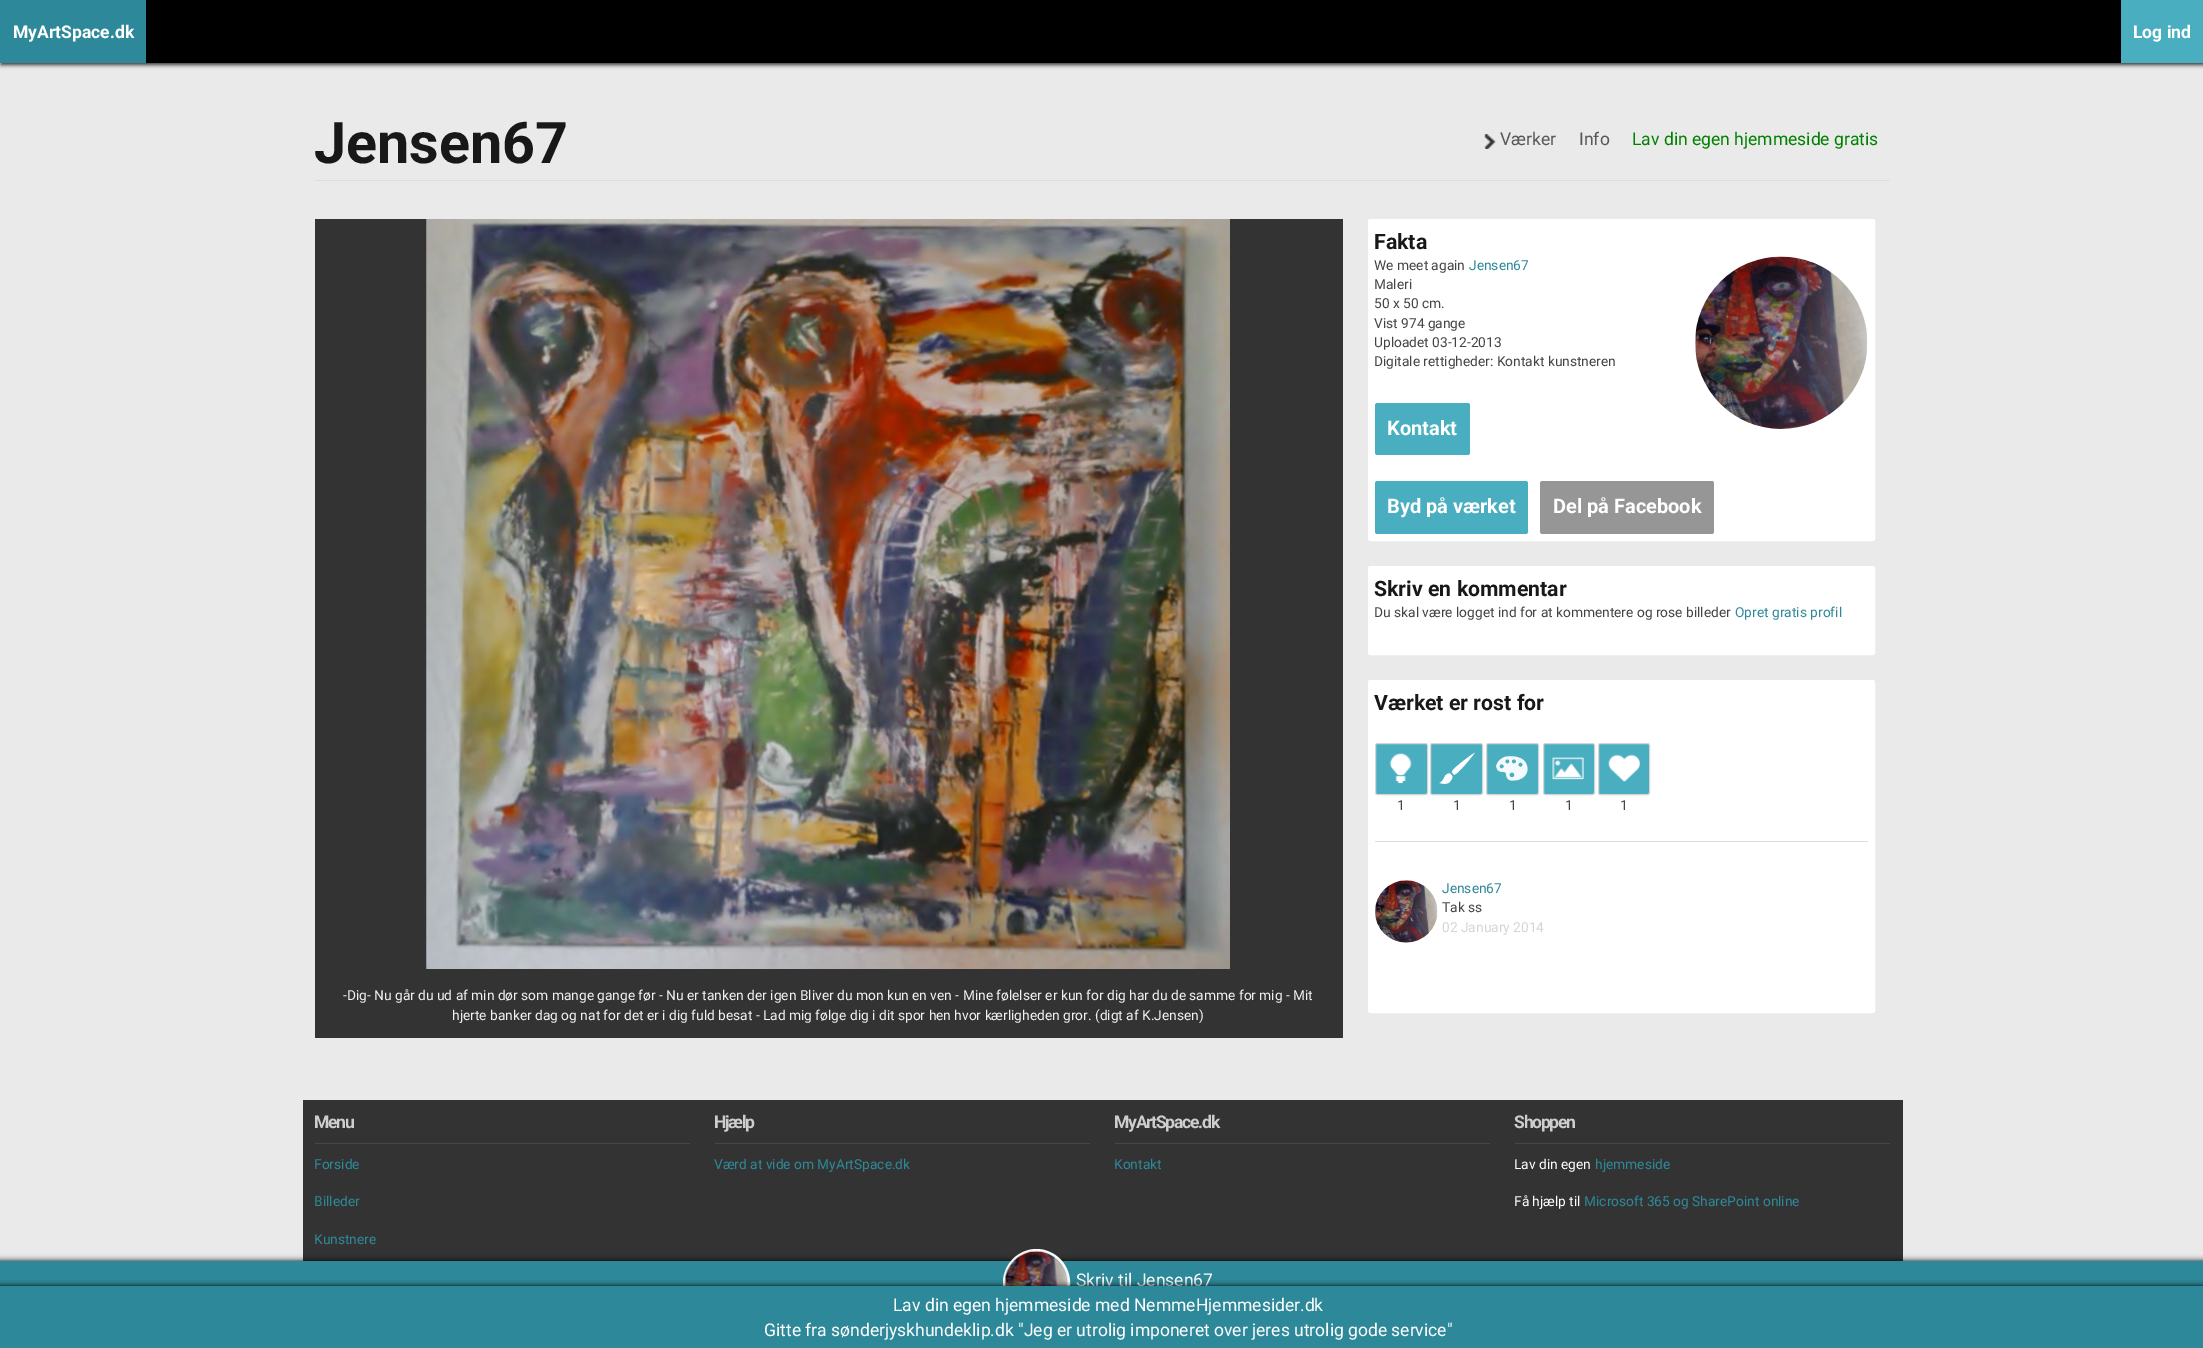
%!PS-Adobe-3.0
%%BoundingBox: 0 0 2203 1348
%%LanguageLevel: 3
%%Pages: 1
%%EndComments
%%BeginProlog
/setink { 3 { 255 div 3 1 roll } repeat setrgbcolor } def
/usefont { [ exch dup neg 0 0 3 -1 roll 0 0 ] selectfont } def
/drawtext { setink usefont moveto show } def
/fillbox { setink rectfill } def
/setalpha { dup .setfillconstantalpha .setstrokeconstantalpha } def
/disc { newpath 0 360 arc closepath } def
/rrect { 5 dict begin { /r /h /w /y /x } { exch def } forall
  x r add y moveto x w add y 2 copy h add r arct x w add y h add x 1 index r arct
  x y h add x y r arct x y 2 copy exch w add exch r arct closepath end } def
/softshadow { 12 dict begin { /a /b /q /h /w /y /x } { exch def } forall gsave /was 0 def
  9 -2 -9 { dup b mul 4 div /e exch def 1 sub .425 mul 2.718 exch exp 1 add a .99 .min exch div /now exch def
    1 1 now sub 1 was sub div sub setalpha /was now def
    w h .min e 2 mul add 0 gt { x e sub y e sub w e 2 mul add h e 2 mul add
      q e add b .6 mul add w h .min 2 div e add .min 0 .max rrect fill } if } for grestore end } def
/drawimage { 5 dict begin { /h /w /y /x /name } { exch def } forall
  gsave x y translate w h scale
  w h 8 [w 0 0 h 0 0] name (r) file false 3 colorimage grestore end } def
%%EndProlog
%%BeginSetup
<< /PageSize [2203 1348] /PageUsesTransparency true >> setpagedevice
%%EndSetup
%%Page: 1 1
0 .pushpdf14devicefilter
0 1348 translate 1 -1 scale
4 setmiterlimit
0 0 2203 1348 234 234 234 fillbox
51 51 51 setink
1 3 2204 62 0 2 1 softshadow
146 0 1975 63 0 0 0 fillbox
0 0 146 63 45 137 153 fillbox
(MyArtSpace.dk) 13 38 /Roboto-Bold 17.5 255 255 255 drawtext
2121 0 82 63 73 174 192 fillbox
(Log ind) 2133 38 /Roboto-Bold 17.5 255 255 255 drawtext
(Jensen67) 314 163 /Roboto-Bold 57.5 24 24 24 drawtext
(assets/img1.rgb) 1484 134 12 15 drawimage
(Værker) 1500 145 /Roboto-Regular 17.5 87 87 87 drawtext
(Info) 1579 145 /Roboto-Regular 17.5 87 87 87 drawtext
(Lav din egen hjemmeside gratis) 1632 145 /Roboto-Regular 17.5 0 128 0 drawtext
315 180 1575 1 221 221 221 fillbox
255 255 255 setink
1368.5 219.5 506 321 2 rrect gsave fill grestore
stroke
(Fakta) 1374 249 /Roboto-Bold 21.25 24 24 24 drawtext
(We meet again) 1374 270 /Roboto-Regular 13.75 68 68 68 drawtext
(Jensen67) 1469 270 /Roboto-Regular 13.75 45 137 153 drawtext
(Maleri) 1374 289 /Roboto-Regular 13.75 68 68 68 drawtext
(50 x 50 cm.) 1374 308 /Roboto-Regular 13.75 68 68 68 drawtext
(Vist 974 gange) 1374 328 /Roboto-Regular 13.75 68 68 68 drawtext
(Uploadet 03-12-2013) 1374 347 /Roboto-Regular 13.75 68 68 68 drawtext
(Digitale rettigheder: Kontakt kunstneren) 1374 366 /Roboto-Regular 13.75 68 68 68 drawtext
(assets/img2.rgb) 1695 256 173 173 drawimage
73 174 192 setink
1375 403 95 52 2.5 rrect fill
(Kontakt) 1387 435 /Roboto-Bold 20 255 255 255 drawtext
73 174 192 setink
1375 481 153 53 2.5 rrect fill
(Byd på værket) 1387 513 /Roboto-Bold 20 255 255 255 drawtext
150 150 150 setink
1540 481 174 53 2.5 rrect fill
(Del på Facebook) 1553 513 /Roboto-Bold 20 255 255 255 drawtext
1368.5 566.5 506 88 2 rrect gsave fill grestore
stroke
(Skriv en kommentar) 1374 596 /Roboto-Bold 21.25 24 24 24 drawtext
(Du skal være logget ind for at kommentere og rose billeder) 1374 617 /Roboto-Regular 13.75 68 68 68 drawtext
(Opret gratis profil) 1735 617 /Roboto-Regular 13.75 45 137 153 drawtext
255 255 255 setink
1368.5 680.5 506 332 2 rrect gsave fill grestore
stroke
(Værket er rost for) 1374 710 /Roboto-Bold 21.25 24 24 24 drawtext
73 174 192 setink
1375.5 743.5 52 51 2 rrect gsave fill grestore
213 213 213 setink
stroke
(assets/img3.rgb) 1389 753 23 31 drawimage
(1) 1397 810 /Roboto-Regular 13.75 68 68 68 drawtext
73 174 192 setink
1430.5 743.5 52 51 2 rrect gsave fill grestore
213 213 213 setink
stroke
(assets/img4.rgb) 1439 752 36 32 drawimage
(1) 1453 810 /Roboto-Regular 13.75 68 68 68 drawtext
73 174 192 setink
1486.5 743.5 52 51 2 rrect gsave fill grestore
213 213 213 setink
stroke
(assets/img5.rgb) 1496 756 32 25 drawimage
(1) 1509 810 /Roboto-Regular 13.75 68 68 68 drawtext
73 174 192 setink
1543.5 743.5 51 51 2 rrect gsave fill grestore
213 213 213 setink
stroke
(assets/img6.rgb) 1552 757 32 23 drawimage
(1) 1565 810 /Roboto-Regular 13.75 68 68 68 drawtext
73 174 192 setink
1598.5 743.5 51 51 2 rrect gsave fill grestore
213 213 213 setink
stroke
(assets/img7.rgb) 1608 754 32 28 drawimage
(1) 1620 810 /Roboto-Regular 13.75 68 68 68 drawtext
1375 841 493 1 221 221 221 fillbox
(assets/img8.rgb) 1375 880 63 63 drawimage
(Jensen67) 1442 893 /Roboto-Regular 13.75 45 137 153 drawtext
(Tak ss) 1442 912 /Roboto-Regular 13.75 68 68 68 drawtext
(02 January 2014) 1442 932 /Roboto-Regular 13.75 213 213 213 drawtext
315 219 1028 819 51 51 51 fillbox
(assets/img9.rgb) 426 219 804 750 drawimage
(-Dig- Nu går du ud af min dør som mange gange før - Nu er tanken der igen Bliver du mon kun en ven - Mine følelser er kun for dig har du de samme for mig - Mit) 343 1000 /Roboto-Regular 13.75 241 241 241 drawtext
(hjerte banker dag og nat for det er i dig fuld besat - Lad mig følge dig i dit spor hen hvor kærligheden gror. \(digt af K.Jensen\)) 452 1020 /Roboto-Regular 13.75 241 241 241 drawtext
303 1100 1600 161 51 51 51 fillbox
315 1143 375 1 71 71 71 fillbox
/Roboto-Bold 17.5 usefont
206 206 206 setink
314 1128 moveto -1.25 0 (Menu) ashow
(Forside) 314 1169 /Roboto-Regular 13.75 45 137 153 drawtext
(Billeder) 314 1206 /Roboto-Regular 13.75 45 137 153 drawtext
(Kunstnere) 314 1244 /Roboto-Regular 13.75 45 137 153 drawtext
715 1143 375 1 71 71 71 fillbox
/Roboto-Bold 17.5 usefont
206 206 206 setink
714 1128 moveto -1.25 0 (Hjælp) ashow
(Værd at vide om MyArtSpace.dk) 714 1169 /Roboto-Regular 13.75 45 137 153 drawtext
1115 1143 375 1 71 71 71 fillbox
/Roboto-Bold 17.5 usefont
206 206 206 setink
1114 1128 moveto -1.25 0 (MyArtSpace.dk) ashow
(Kontakt) 1114 1169 /Roboto-Regular 13.75 45 137 153 drawtext
1515 1143 375 1 71 71 71 fillbox
/Roboto-Bold 17.5 usefont
206 206 206 setink
1514 1128 moveto -1.25 0 (Shoppen) ashow
(Lav din egen) 1514 1169 /Roboto-Regular 13.75 255 255 255 drawtext
(hjemmeside) 1595 1169 /Roboto-Regular 13.75 45 137 153 drawtext
(Få hjælp til) 1514 1206 /Roboto-Regular 13.75 255 255 255 drawtext
(Microsoft 365 og SharePoint online) 1584 1206 /Roboto-Regular 13.75 45 137 153 drawtext
0 0 0 setink
0 1261 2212 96 0 3 1 softshadow
0 1261 2203 25 45 137 153 fillbox
255 255 255 setink
3 setlinewidth
1036.5 1282.5 32 disc stroke
(assets/img10.rgb) 1004 1250 64 36 drawimage
(Skriv til Jensen67) 1076 1286 /Roboto-Regular 17.5 255 255 255 drawtext
0 0 0 setink
0 1286 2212 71 0 3 1 softshadow
0 1286 2203 62 45 137 153 fillbox
(Lav din egen hjemmeside med NemmeHjemmesider.dk) 893 1311 /Roboto-Regular 17.5 255 255 255 drawtext
(Gitte fra sønderjyskhundeklip.dk "Jeg er utrolig imponeret over jeres utrolig gode service") 764 1336 /Roboto-Regular 17.5 255 255 255 drawtext
.poppdf14devicefilter showpage
%%EOF
